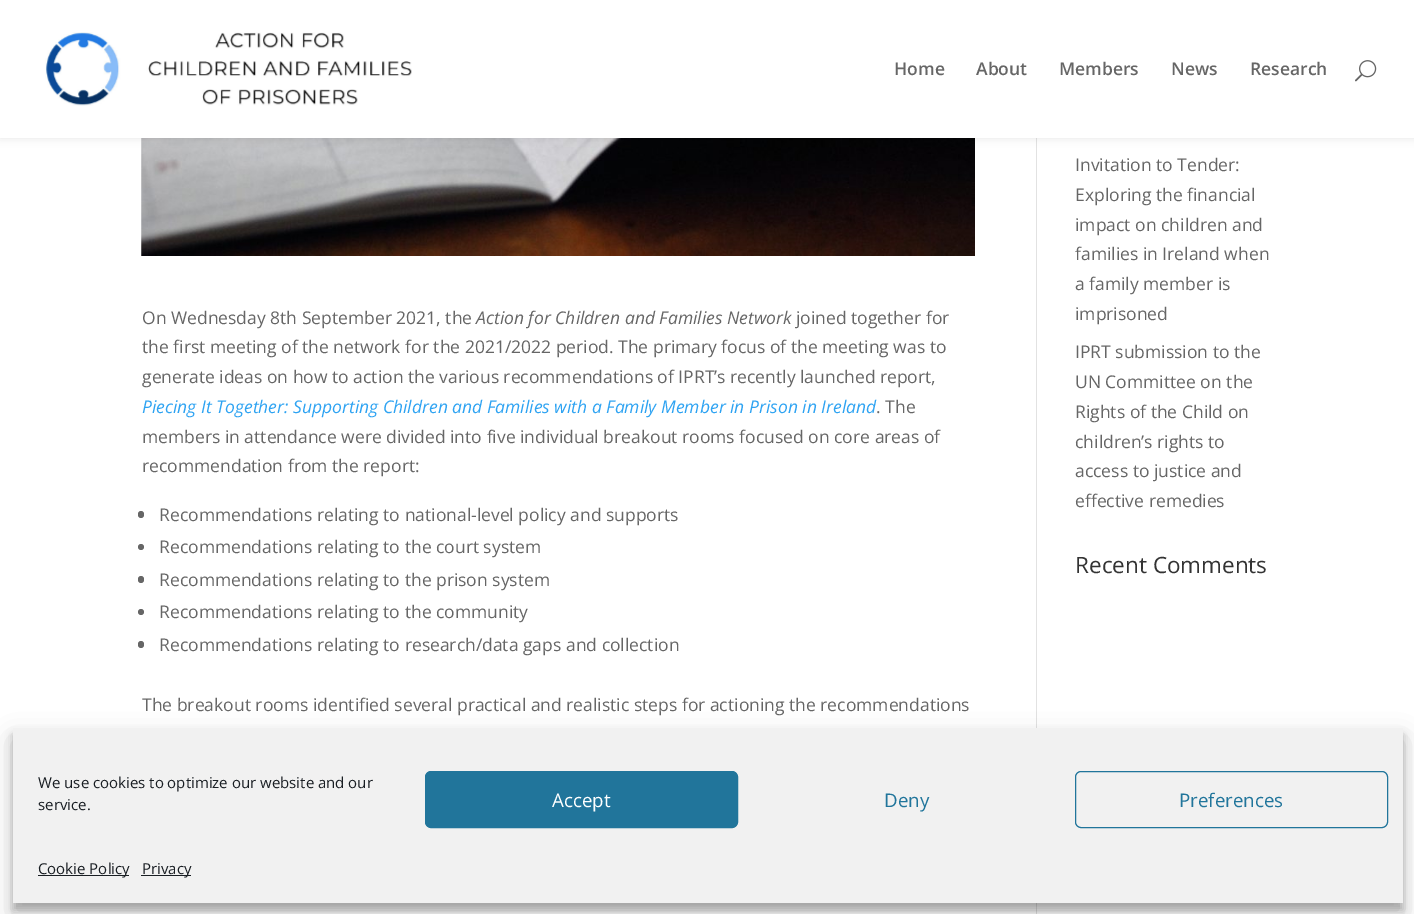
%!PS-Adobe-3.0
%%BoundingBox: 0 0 1414 914
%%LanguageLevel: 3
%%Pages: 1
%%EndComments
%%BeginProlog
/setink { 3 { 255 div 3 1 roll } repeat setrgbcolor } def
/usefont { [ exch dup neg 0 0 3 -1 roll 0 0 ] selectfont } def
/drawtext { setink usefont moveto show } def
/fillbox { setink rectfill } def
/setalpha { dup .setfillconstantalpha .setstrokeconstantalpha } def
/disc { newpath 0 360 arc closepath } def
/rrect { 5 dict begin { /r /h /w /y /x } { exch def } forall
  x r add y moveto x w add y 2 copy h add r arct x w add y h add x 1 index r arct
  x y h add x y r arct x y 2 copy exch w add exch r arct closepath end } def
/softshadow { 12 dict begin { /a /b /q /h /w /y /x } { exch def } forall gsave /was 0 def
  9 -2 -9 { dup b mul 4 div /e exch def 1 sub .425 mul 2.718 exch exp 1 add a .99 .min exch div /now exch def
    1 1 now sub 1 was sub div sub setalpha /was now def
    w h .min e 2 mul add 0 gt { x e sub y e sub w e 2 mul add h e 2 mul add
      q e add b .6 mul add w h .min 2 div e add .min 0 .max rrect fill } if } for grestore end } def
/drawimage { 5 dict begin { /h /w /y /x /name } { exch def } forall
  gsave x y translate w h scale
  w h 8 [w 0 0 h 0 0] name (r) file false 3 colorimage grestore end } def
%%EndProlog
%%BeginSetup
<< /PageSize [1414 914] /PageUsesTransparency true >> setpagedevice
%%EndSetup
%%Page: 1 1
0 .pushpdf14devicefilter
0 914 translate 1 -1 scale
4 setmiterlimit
0 0 1414 914 255 255 255 fillbox
1036 138 1 776 226 226 226 fillbox
(assets/img3.rgb) 141 138 834 118 drawimage
0 0 0 setink
0 0 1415 138 0 4.5 0.1 softshadow
0 0 1414 138 255 255 255 fillbox
(assets/img1.rgb) 45 32 367 74 drawimage
(Home) 894 75 /OpenSans-SemiBold 17.5 102 102 102 drawtext
(About) 976 75 /OpenSans-SemiBold 17.5 102 102 102 drawtext
(Members) 1059 75 /OpenSans-SemiBold 17.5 102 102 102 drawtext
(News) 1171 75 /OpenSans-SemiBold 17.5 102 102 102 drawtext
(Research) 1250 75 /OpenSans-SemiBold 17.5 102 102 102 drawtext
(assets/img2.rgb) 1355 60 22 22 drawimage
(On Wednesday 8th September 2021, the) 142 324 /OpenSans-Regular 17.5 102 102 102 drawtext
(Action for Children and Families Network) 476 324 /OpenSans-Italic 17.5 102 102 102 drawtext
(joined together for) 796 324 /OpenSans-Regular 17.5 102 102 102 drawtext
(the first meeting of the network for the 2021/2022 period. The primary focus of the meeting was to) 142 353 /OpenSans-Regular 17.5 102 102 102 drawtext
(generate ideas on how to action the various recommendations of IPRT’s recently launched report,) 142 383 /OpenSans-Regular 17.5 102 102 102 drawtext
(Piecing It Together: Supporting Children and Families with a Family Member in Prison in Ireland) 142 413 /OpenSans-Italic 17.5 46 163 242 drawtext
(. The) 876 413 /OpenSans-Regular 17.5 102 102 102 drawtext
(members in attendance were divided into five individual breakout rooms focused on core areas of) 142 443 /OpenSans-Regular 17.5 102 102 102 drawtext
(recommendation from the report:) 142 472 /OpenSans-Regular 17.5 102 102 102 drawtext
138 511 6 7 3 rrect fill
(Recommendations relating to national-level policy and supports) 159 521 /OpenSans-Regular 17.5 102 102 102 drawtext
141 547 3 disc fill
(Recommendations relating to the court system) 159 553 /OpenSans-Regular 17.5 102 102 102 drawtext
138 576 6 7 3 rrect fill
(Recommendations relating to the prison system) 159 586 /OpenSans-Regular 17.5 102 102 102 drawtext
141 612 3 disc fill
(Recommendations relating to the community) 159 618 /OpenSans-Regular 17.5 102 102 102 drawtext
138 641 6 7 3 rrect fill
(Recommendations relating to research/data gaps and collection) 159 651 /OpenSans-Regular 17.5 102 102 102 drawtext
(The breakout rooms identified several practical and realistic steps for actioning the recommendations) 142 711 /OpenSans-Regular 17.5 102 102 102 drawtext
(Invitation to Tender:) 1075 171 /OpenSans-Regular 17.5 102 102 102 drawtext
(Exploring the financial) 1075 201 /OpenSans-Regular 17.5 102 102 102 drawtext
(impact on children and) 1075 231 /OpenSans-Regular 17.5 102 102 102 drawtext
(families in Ireland when) 1075 260 /OpenSans-Regular 17.5 102 102 102 drawtext
(a family member is) 1075 290 /OpenSans-Regular 17.5 102 102 102 drawtext
(imprisoned) 1075 320 /OpenSans-Regular 17.5 102 102 102 drawtext
(IPRT submission to the) 1075 358 /OpenSans-Regular 17.5 102 102 102 drawtext
(UN Committee on the) 1075 388 /OpenSans-Regular 17.5 102 102 102 drawtext
(Rights of the Child on) 1075 418 /OpenSans-Regular 17.5 102 102 102 drawtext
(children’s rights to) 1075 448 /OpenSans-Regular 17.5 102 102 102 drawtext
(access to justice and) 1075 477 /OpenSans-Regular 17.5 102 102 102 drawtext
(effective remedies) 1075 507 /OpenSans-Regular 17.5 102 102 102 drawtext
(Recent Comments) 1075 573 /OpenSans-Regular 22.5 51 51 51 drawtext
0 0 0 setink
13 735 1390 175 0 4 0.23 softshadow
13 740 1390 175 0 12.5 0.19 softshadow
13 728 1390 175 241 241 241 fillbox
(We use cookies to optimize our website and our) 38 788 /OpenSans-Regular 15 25 30 35 drawtext
(service.) 38 810 /OpenSans-Regular 15 25 30 35 drawtext
33 117 155 setink
425.5 771.5 312 56 5.5 rrect gsave fill grestore
stroke
(Accept) 552 807 /OpenSans-Regular 18.75 255 255 255 drawtext
(Deny) 884 807 /OpenSans-Regular 18.75 33 117 155 drawtext
1075.5 771.5 312 56 5.5 rrect stroke
(Preferences) 1179 807 /OpenSans-Regular 18.75 33 117 155 drawtext
38 875 91 1 25 30 35 fillbox
(Cookie Policy) 38 874 /OpenSans-Regular 15 25 30 35 drawtext
141 875 50 1 25 30 35 fillbox
(Privacy) 142 874 /OpenSans-Regular 15 25 30 35 drawtext
.poppdf14devicefilter showpage
%%EOF
